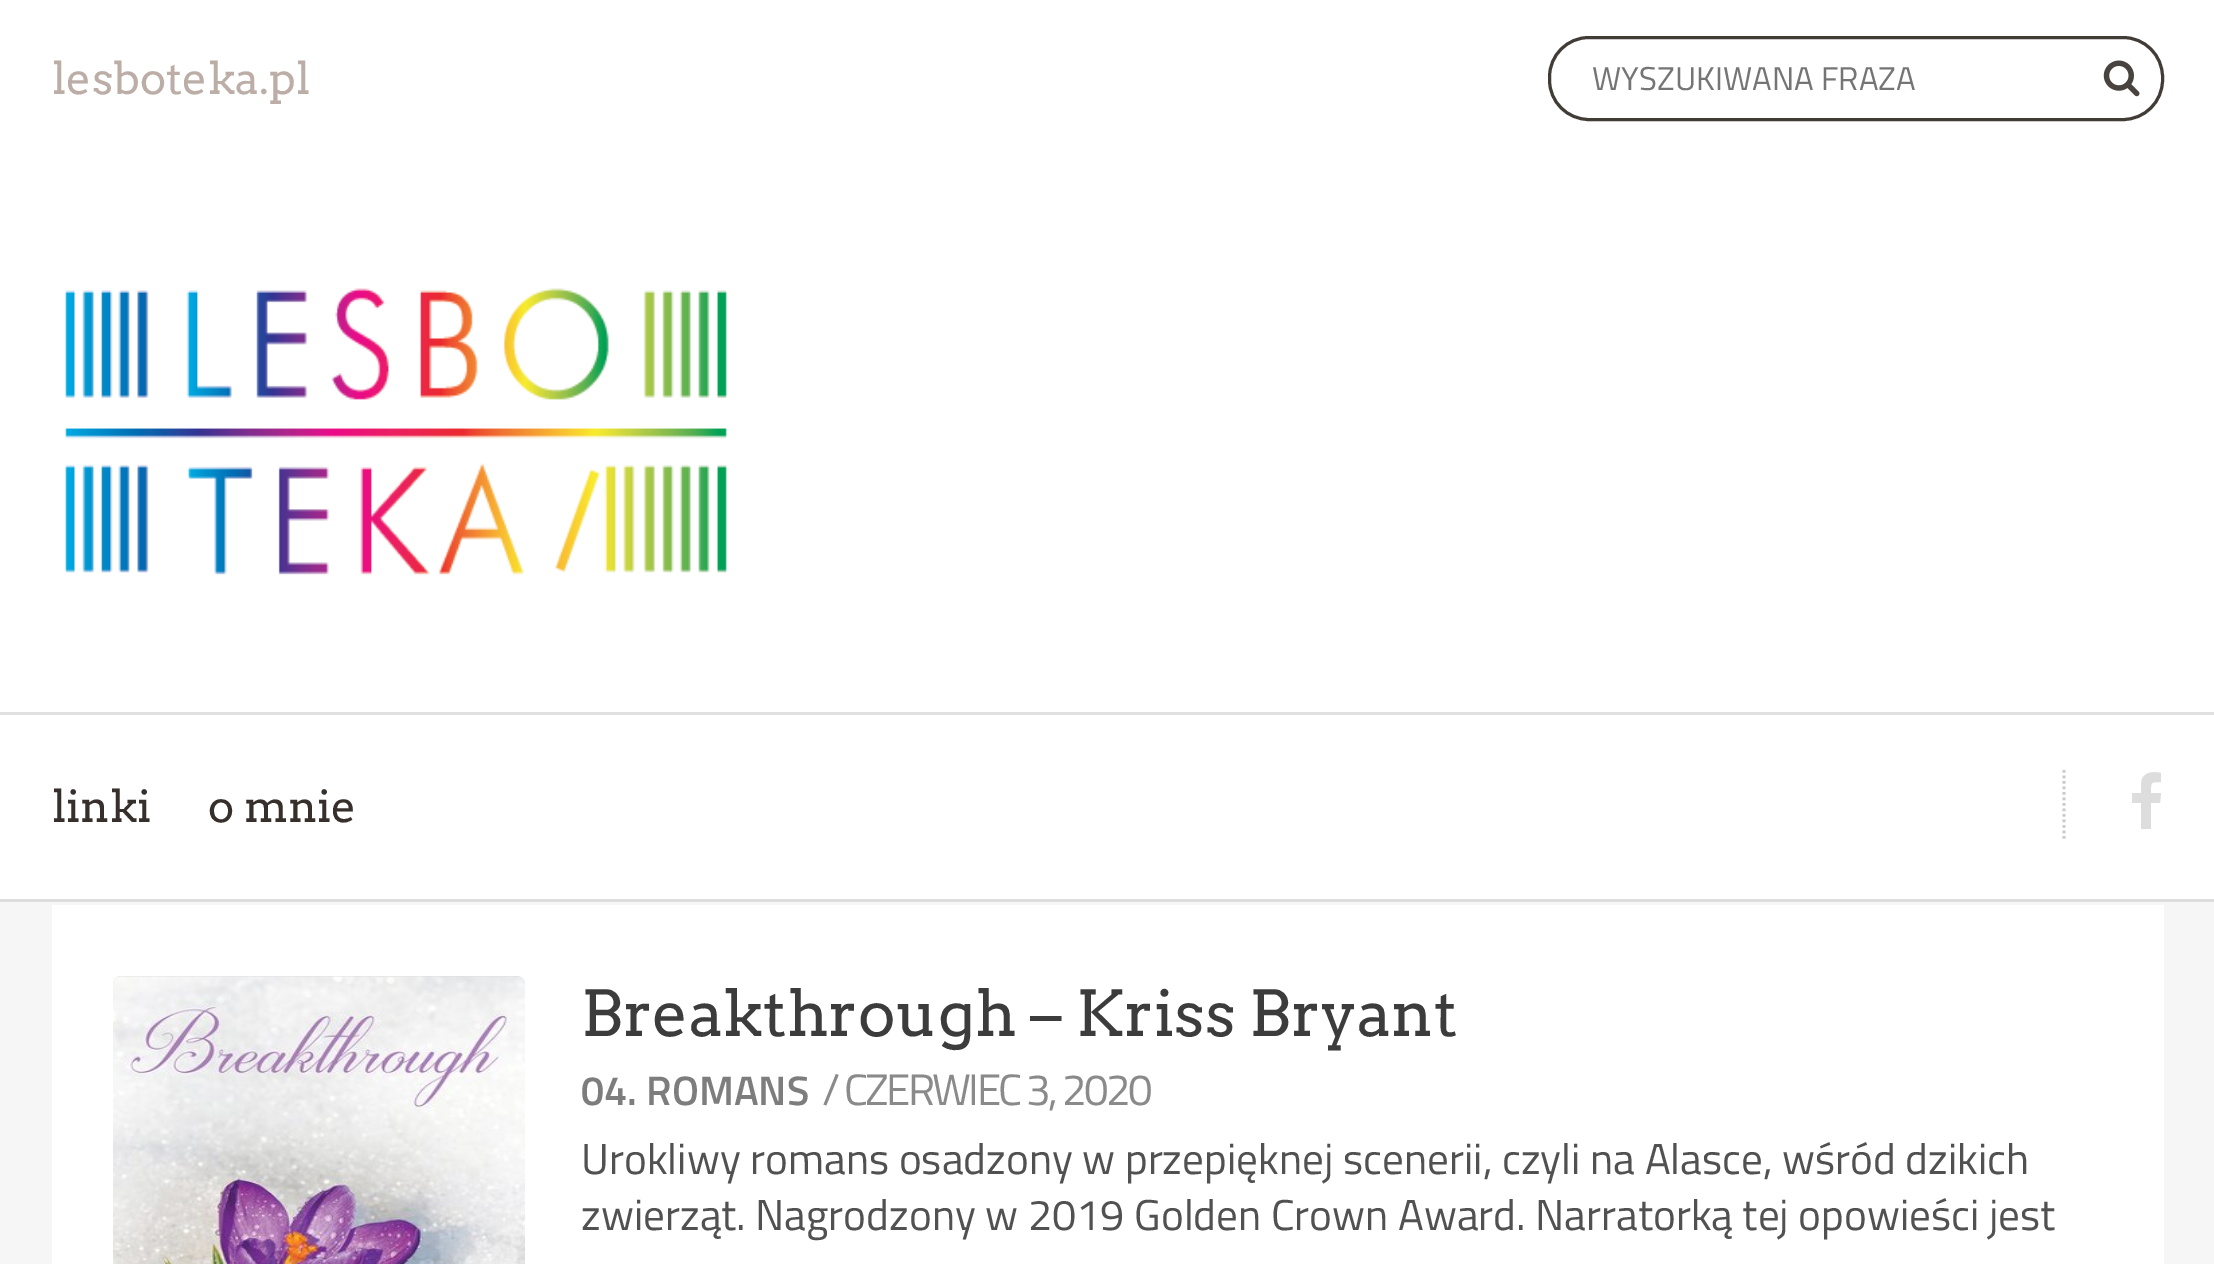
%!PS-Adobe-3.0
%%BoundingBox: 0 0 2214 1264
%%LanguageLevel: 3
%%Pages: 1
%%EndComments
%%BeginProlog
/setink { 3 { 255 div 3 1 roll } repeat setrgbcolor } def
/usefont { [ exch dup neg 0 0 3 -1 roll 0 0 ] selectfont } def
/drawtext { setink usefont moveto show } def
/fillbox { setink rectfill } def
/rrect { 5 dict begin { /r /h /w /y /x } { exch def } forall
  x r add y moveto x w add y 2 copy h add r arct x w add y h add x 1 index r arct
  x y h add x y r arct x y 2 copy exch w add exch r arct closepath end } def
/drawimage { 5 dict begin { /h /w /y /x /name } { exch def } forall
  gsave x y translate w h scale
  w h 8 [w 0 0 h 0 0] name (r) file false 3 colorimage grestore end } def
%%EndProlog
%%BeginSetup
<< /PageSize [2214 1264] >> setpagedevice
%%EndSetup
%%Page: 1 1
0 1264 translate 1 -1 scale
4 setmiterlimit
0 0 2214 1264 255 255 255 fillbox
(lesboteka.pl) 52 94 /Arvo-Regular 44 188 174 167 drawtext
66 60 55 setink
3 setlinewidth
1549.5 37.5 613 82 39.5 rrect stroke
(WYSZUKIWANA FRAZA) 1592 90 /TitilliumWeb-Regular 33 117 117 117 drawtext
(assets/img1.rgb) 2103 60 37 37 drawimage
(assets/img2.rgb) 65 288 662 287 drawimage
0 712 2214 3 224 224 224 fillbox
0 899 2214 3 221 221 221 fillbox
(linki) 52 822 /Arvo-Regular 44 54 47 43 drawtext
(o mnie) 208 822 /Arvo-Regular 44 54 47 43 drawtext
202 202 202 setink
2.8 setlinewidth
[2.75 2.75] 0 setdash
2064 770 moveto 2064 841.5 lineto stroke
221 221 221 setink
2161 773 moveto 2161 782 lineto 2150 782 2151 782 2151 793 curveto 2161 793 lineto 2160 803 lineto 2151 803 lineto 2151 829 lineto 2141 829 lineto 2141 803 lineto 2132 803 lineto 2132 793 lineto 2141 793 lineto 2141 783 lineto 2142 772 2153 771 2161 773 curveto closepath fill
0 902 2214 362 246 246 246 fillbox
52 905 2112 359 255 255 255 fillbox
221 221 221 setink
113 976 412 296 8 rrect fill
(assets/img3.rgb) 113 976 412 288 drawimage
(Breakthrough – Kriss Bryant) 581 1036 /Arvo-Regular 63.25 60 60 60 drawtext
(04. ROMANS) 581 1105 /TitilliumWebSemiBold-SemiBold 41.25 125 125 125 drawtext
/TitilliumWeb-Regular 44 usefont
138 138 138 setink
822 1105 moveto -2.75 0 (/ CZERWIEC 3, 2020) ashow
(Urokliwy romans osadzony w przepięknej scenerii, czyli na Alasce, wśród dzikich) 581 1174 /TitilliumWeb-Regular 43.25 81 81 81 drawtext
(zwierząt. Nagrodzony w 2019 Golden Crown Award. Narratorką tej opowieści jest) 581 1230 /TitilliumWeb-Regular 43.25 81 81 81 drawtext
showpage
%%EOF
